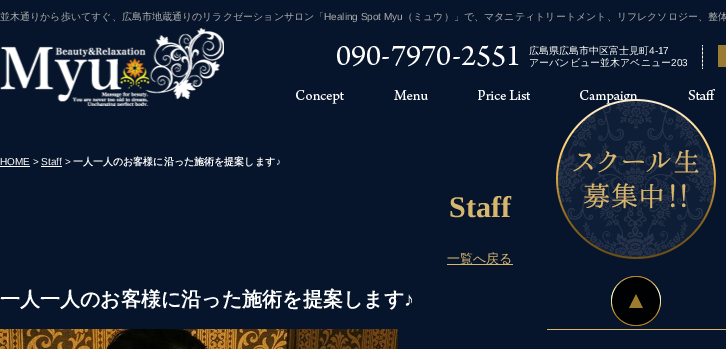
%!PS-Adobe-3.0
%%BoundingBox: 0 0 726 349
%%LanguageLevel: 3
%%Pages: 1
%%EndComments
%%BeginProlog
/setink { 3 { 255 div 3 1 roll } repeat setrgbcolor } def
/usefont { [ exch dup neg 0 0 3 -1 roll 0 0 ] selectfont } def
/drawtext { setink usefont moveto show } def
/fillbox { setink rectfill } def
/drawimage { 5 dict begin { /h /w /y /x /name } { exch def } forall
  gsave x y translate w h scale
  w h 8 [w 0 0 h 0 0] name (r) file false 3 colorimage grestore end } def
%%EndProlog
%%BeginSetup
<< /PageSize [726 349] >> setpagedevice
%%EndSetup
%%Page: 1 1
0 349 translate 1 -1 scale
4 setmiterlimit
0 0 726 349 7 21 44 fillbox
(並木通りから歩いてすぐ、広島市地蔵通りのリラクゼーションサロン「) 0 20 /WenQuanYiZenHei-Medium 10 172 172 172 drawtext
(Healing Spot Myu) 324 20 /LiberationSans-Regular 10 172 172 172 drawtext
(（ミュウ）」で、マタニティトリートメント、リフレクソロジー、整体) 403 20 /WenQuanYiZenHei-Medium 10 172 172 172 drawtext
(assets/img1.rgb) 0 28 224 78 drawimage
(assets/img2.rgb) 702 45 1 24 drawimage
(assets/img3.rgb) 337 45 182 22 drawimage
(広島県広島市中区富士見町) 529 54 /WenQuanYiZenHei-Medium 10 255 255 255 drawtext
(4-17) 649 54 /LiberationSans-Regular 10 255 255 255 drawtext
(アーバンビュー並木アベニュー) 529 66 /WenQuanYiZenHei-Medium 10 255 255 255 drawtext
(203) 671 66 /LiberationSans-Regular 10 255 255 255 drawtext
718 45 8 22 156 124 51 fillbox
(assets/img4.rgb) 296 90 48 14 drawimage
(assets/img5.rgb) 394 90 34 10 drawimage
(assets/img6.rgb) 478 90 52 10 drawimage
(assets/img7.rgb) 580 90 58 14 drawimage
(assets/img8.rgb) 688 89 27 11 drawimage
(HOME > Staff >) 0 165 /LiberationSans-Regular 10 255 255 255 drawtext
0 166 30 1 255 255 255 fillbox
(一人一人のお客様に沿った施術を提案します) 73 165 /WenQuanYiZenHei-Bold 10 255 255 255 drawtext
(♪) 276 165 /LiberationSans-Bold 10 255 255 255 drawtext
41 166 21 1 255 255 255 fillbox
(Staff) 449 217 /LiberationSerif-Bold 30 215 182 110 drawtext
447 264 66 1 215 182 110 fillbox
(一覧へ戻る) 447 263 /WenQuanYiZenHei-Medium 13 215 182 110 drawtext
(一人一人のお客様に沿った施術を提案します) 0 306 /WenQuanYiZenHei-Bold 20 255 255 255 drawtext
(♪) 404 306 /LiberationSerif-Bold 20 255 255 255 drawtext
(assets/img9.rgb) 611 276 50 50 drawimage
(assets/img10.rgb) 611 276 50 50 drawimage
(assets/img11.rgb) 0 329 398 20 drawimage
547 329 179 1 215 182 110 fillbox
(assets/img12.rgb) 556 99 160 160 drawimage
showpage
%%EOF
